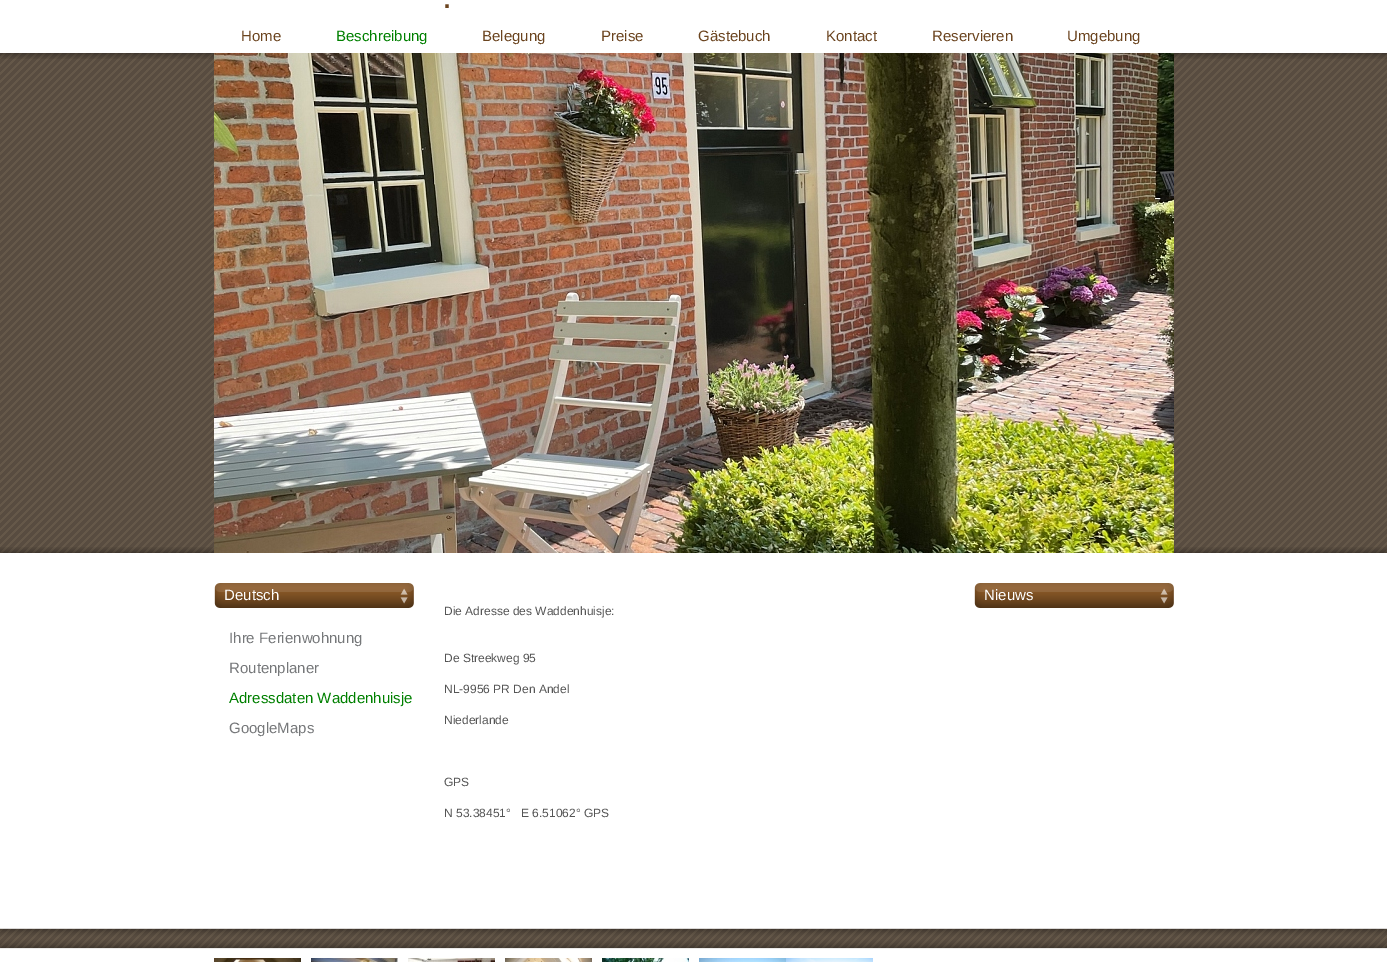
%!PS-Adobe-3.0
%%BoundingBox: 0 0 1387 962
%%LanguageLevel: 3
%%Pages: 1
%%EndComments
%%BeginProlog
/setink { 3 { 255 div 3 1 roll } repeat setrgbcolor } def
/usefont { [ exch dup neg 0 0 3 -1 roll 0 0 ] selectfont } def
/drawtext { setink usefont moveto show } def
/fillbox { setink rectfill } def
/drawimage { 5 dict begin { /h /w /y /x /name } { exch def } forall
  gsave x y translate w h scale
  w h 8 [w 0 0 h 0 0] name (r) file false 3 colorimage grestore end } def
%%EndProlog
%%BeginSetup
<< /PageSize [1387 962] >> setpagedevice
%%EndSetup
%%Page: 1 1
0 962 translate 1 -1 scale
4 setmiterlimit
0 0 1387 962 255 255 255 fillbox
(.) 442 8 /LiberationSans-Regular 36 107 68 31 drawtext
(Home) 241 41 /LiberationSans-Regular 15 107 68 31 drawtext
(Beschreibung) 336 41 /LiberationSans-Regular 15 0 128 0 drawtext
(Belegung) 482 41 /LiberationSans-Regular 15 107 68 31 drawtext
(Preise) 601 41 /LiberationSans-Regular 15 107 68 31 drawtext
(Gästebuch) 698 41 /LiberationSans-Regular 15 107 68 31 drawtext
(Kontact) 826 41 /LiberationSans-Regular 15 107 68 31 drawtext
(Reservieren) 932 41 /LiberationSans-Regular 15 107 68 31 drawtext
(Umgebung) 1067 41 /LiberationSans-Regular 15 107 68 31 drawtext
(assets/img1.rgb) 0 53 1387 500 drawimage
(assets/img2.rgb) 0 53 1387 6 drawimage
(assets/img3.rgb) 0 547 1387 6 drawimage
(assets/img4.rgb) 214 53 960 500 drawimage
(assets/img5.rgb) 214 583 200 25 drawimage
(Deutsch) 224 600 /LiberationSans-Regular 15 255 255 255 drawtext
(Ihre Ferienwohnung) 229 643 /LiberationSans-Regular 15 118 120 122 drawtext
(Routenplaner) 229 673 /LiberationSans-Regular 15 118 120 122 drawtext
(Adressdaten Waddenhuisje) 229 703 /LiberationSans-Regular 15 0 128 0 drawtext
(GoogleMaps) 229 733 /LiberationSans-Regular 15 118 120 122 drawtext
(assets/img5.rgb) 974 583 200 25 drawimage
(Nieuws) 984 600 /LiberationSans-Regular 15 255 255 255 drawtext
(Die Adresse des Waddenhuisje:) 444 615 /LiberationSans-Regular 12 85 85 85 drawtext
(De Streekweg 95) 444 662 /LiberationSans-Regular 12 85 85 85 drawtext
(NL-9956 PR Den Andel) 444 693 /LiberationSans-Regular 12 85 85 85 drawtext
(Niederlande) 444 724 /LiberationSans-Regular 12 85 85 85 drawtext
(GPS) 444 786 /LiberationSans-Regular 12 85 85 85 drawtext
(N 53.38451°   E 6.51062° GPS) 444 817 /LiberationSans-Regular 12 85 85 85 drawtext
(assets/img6.rgb) 0 928 1387 21 drawimage
(assets/img7.rgb) 214 958 87 4 drawimage
(assets/img8.rgb) 311 958 87 4 drawimage
(assets/img9.rgb) 408 958 87 4 drawimage
(assets/img10.rgb) 505 958 87 4 drawimage
(assets/img11.rgb) 602 958 87 4 drawimage
(assets/img12.rgb) 699 958 87 4 drawimage
(assets/img13.rgb) 786 958 87 4 drawimage
showpage
%%EOF
